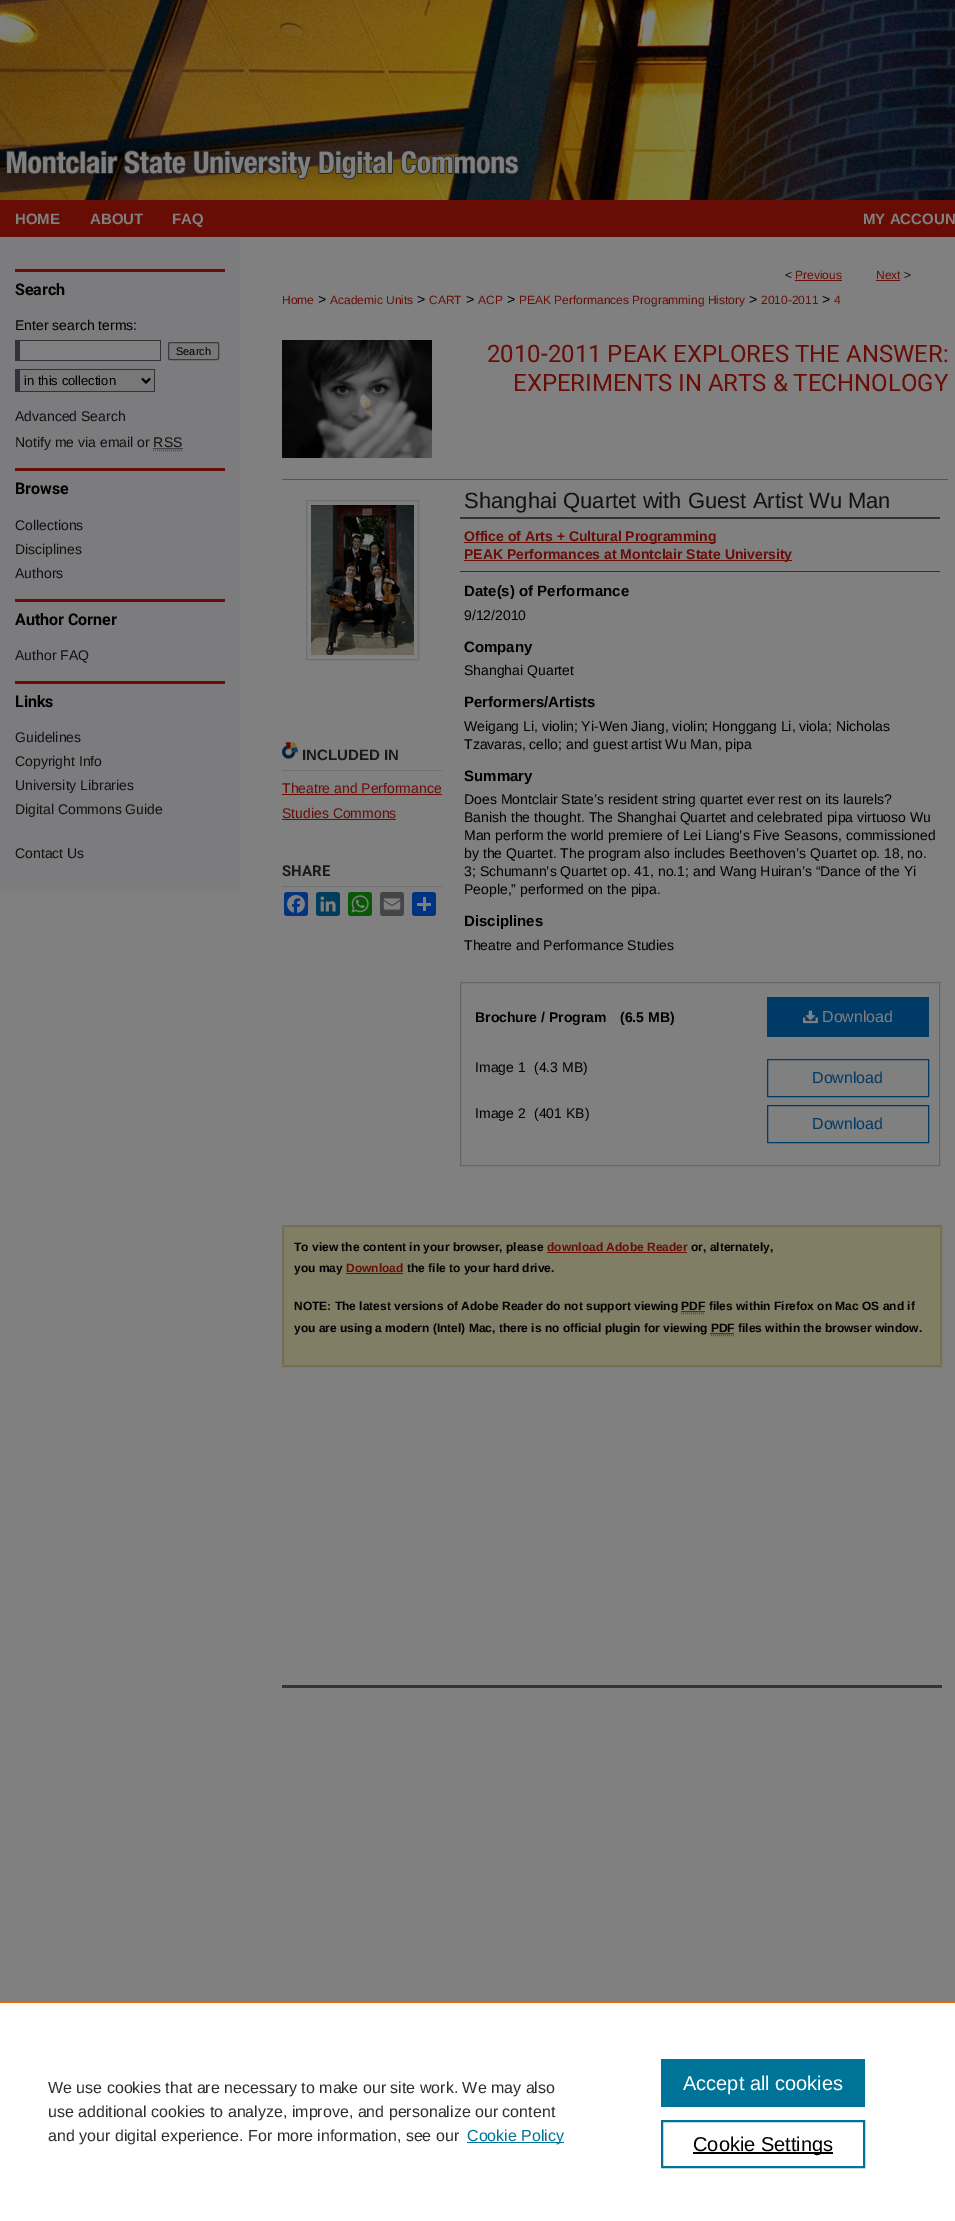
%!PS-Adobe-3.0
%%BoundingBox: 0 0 955 2221
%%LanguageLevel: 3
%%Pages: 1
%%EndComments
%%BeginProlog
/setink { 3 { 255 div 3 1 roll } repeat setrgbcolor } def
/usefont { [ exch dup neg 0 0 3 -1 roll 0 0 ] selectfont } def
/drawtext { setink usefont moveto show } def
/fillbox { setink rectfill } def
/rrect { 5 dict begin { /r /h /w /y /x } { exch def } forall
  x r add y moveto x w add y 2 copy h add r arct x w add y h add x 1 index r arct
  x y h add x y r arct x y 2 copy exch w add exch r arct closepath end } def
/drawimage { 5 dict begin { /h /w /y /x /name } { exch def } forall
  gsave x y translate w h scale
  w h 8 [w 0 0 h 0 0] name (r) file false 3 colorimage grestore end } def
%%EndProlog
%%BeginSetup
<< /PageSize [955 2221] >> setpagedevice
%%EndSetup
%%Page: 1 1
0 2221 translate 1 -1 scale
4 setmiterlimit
0 0 955 2221 128 128 128 fillbox
(assets/img1.rgb) 0 0 955 237 drawimage
(assets/img2.rgb) 0 142 524 47 drawimage
(HOME) 15 224 /LiberationSans-Bold 15 128 128 128 drawtext
(ABOUT) 90 224 /LiberationSans-Bold 15 128 128 128 drawtext
(FAQ) 172 224 /LiberationSans-Bold 15 128 128 128 drawtext
(MY ACCOUN) 863 224 /LiberationSans-Bold 15 128 128 128 drawtext
0 237 240 654 124 124 126 fillbox
15 269 210 3 105 13 7 fillbox
(Search) 15 295 /Roboto-Bold 16 0 0 0 drawtext
(Enter search terms:) 15 330 /LiberationSans-Regular 14 0 0 0 drawtext
20 341 140 19 128 128 128 fillbox
15 340 146 1 47 51 57 fillbox
160 340 1 21 47 51 57 fillbox
15 360 146 1 47 51 57 fillbox
15 340 5 21 47 51 57 fillbox
120 120 120 setink
168.5 342.5 50 17 1.5 rrect gsave fill grestore
59 59 59 setink
stroke
(Search) 176 355 /LiberationSans-Regular 11 0 0 0 drawtext
20 370 134 21 120 120 120 fillbox
15 369 140 1 47 51 57 fillbox
154 369 1 23 47 51 57 fillbox
15 391 140 1 47 51 57 fillbox
15 369 5 23 47 51 57 fillbox
0 0 0 setink
2 setlinewidth
142 378.5 moveto 146 382.5 lineto 150 378.5 lineto stroke
(in this collection) 24 385 /LiberationSans-Regular 13 0 0 0 drawtext
(Advanced Search) 15 421 /LiberationSans-Regular 14 17 17 17 drawtext
(Notify me via email or RSS) 15 447 /LiberationSans-Regular 14 17 17 17 drawtext
21 21 21 setink
1 setlinewidth
[1 1] 0 setdash
153.5 448.5 moveto 182.5 448.5 lineto stroke
77 77 77 setink
153 450.5 moveto 182 450.5 lineto stroke
15 468 210 3 105 13 7 fillbox
(Browse) 15 494 /Roboto-Bold 16 0 0 0 drawtext
(Collections) 15 530 /LiberationSans-Regular 14 17 17 17 drawtext
(Disciplines) 15 554 /LiberationSans-Regular 14 17 17 17 drawtext
(Authors) 15 578 /LiberationSans-Regular 14 17 17 17 drawtext
15 599 210 3 105 13 7 fillbox
(Author Corner) 15 625 /Roboto-Bold 16 0 0 0 drawtext
(Author FAQ) 15 660 /LiberationSans-Regular 14 17 17 17 drawtext
15 681 210 3 105 13 7 fillbox
(Links) 15 707 /Roboto-Bold 16 0 0 0 drawtext
(Guidelines) 15 742 /LiberationSans-Regular 14 17 17 17 drawtext
(Copyright Info) 15 766 /LiberationSans-Regular 14 17 17 17 drawtext
(University Libraries) 15 790 /LiberationSans-Regular 14 17 17 17 drawtext
(Digital Commons Guide) 15 814 /LiberationSans-Regular 14 17 17 17 drawtext
(Contact Us) 15 858 /LiberationSans-Regular 14 17 17 17 drawtext
(<) 785 279 /LiberationSans-Regular 12 17 17 17 drawtext
(Previous) 795 279 /LiberationSans-Regular 12 105 13 7 drawtext
795 280 47 1 105 13 7 fillbox
(Next) 876 279 /LiberationSans-Regular 12 105 13 7 drawtext
876 280 24 1 105 13 7 fillbox
(>) 904 279 /LiberationSans-Regular 12 17 17 17 drawtext
(Home) 282 304 /LiberationSans-Regular 12 105 13 7 drawtext
(>) 318 304 /LiberationSans-Regular 14 0 0 0 drawtext
(Academic Units) 330 304 /LiberationSans-Regular 12 105 13 7 drawtext
(>) 417 304 /LiberationSans-Regular 14 0 0 0 drawtext
(CART) 429 304 /LiberationSans-Regular 12 105 13 7 drawtext
(>) 466 304 /LiberationSans-Regular 14 0 0 0 drawtext
(ACP) 478 304 /LiberationSans-Regular 12 105 13 7 drawtext
(>) 507 304 /LiberationSans-Regular 14 0 0 0 drawtext
(PEAK Performances Programming History) 519 304 /LiberationSans-Regular 12 105 13 7 drawtext
(>) 749 304 /LiberationSans-Regular 14 0 0 0 drawtext
(2010-2011) 761 304 /LiberationSans-Regular 12 105 13 7 drawtext
(>) 822 304 /LiberationSans-Regular 14 0 0 0 drawtext
(4) 834 304 /LiberationSans-Regular 12 105 13 7 drawtext
(assets/img3.rgb) 282 340 150 118 drawimage
(2010-2011 PEAK EXPLORES THE ANSWER:) 487 362 /Roboto-Regular 24 105 13 7 drawtext
(EXPERIMENTS IN ARTS & TECHNOLOGY) 513 391 /Roboto-Regular 24 105 13 7 drawtext
111 111 111 setink
[] 0 setdash
306.5 500.5 112 159 rectstroke
(assets/img4.rgb) 311 505 103 150 drawimage
(assets/img5.rgb) 282 742 16 17 drawimage
282 770 160 1 111 111 111 fillbox
(INCLUDED IN) 302 760 /LiberationSans-Bold 15 26 26 26 drawtext
(Theatre and Performance) 282 793 /LiberationSans-Regular 14 105 13 7 drawtext
282 794 160 1 105 13 7 fillbox
(Studies Commons) 282 818 /LiberationSans-Regular 14 105 13 7 drawtext
282 819 114 1 105 13 7 fillbox
282 886 160 1 111 111 111 fillbox
(SHARE) 282 876 /Roboto-Bold 15 26 26 26 drawtext
4 51 128 setink
284 892 24 24 3 rrect fill
(assets/img6.rgb) 287 895 18 18 drawimage
0 62 91 setink
316 892 24 24 3 rrect fill
(assets/img7.rgb) 320 896 16 16 drawimage
9 88 5 setink
348 892 24 24 3 rrect fill
(assets/img8.rgb) 351 895 18 18 drawimage
68 69 72 setink
380 892 24 24 3 rrect fill
(assets/img9.rgb) 383 898 18 12 drawimage
1 51 128 setink
412 892 24 24 3 rrect fill
423 897 3 14 128 128 128 fillbox
417 903 14 3 128 128 128 fillbox
282 479 666 1 85 85 85 fillbox
(Shanghai Quartet with Guest Artist Wu Man) 464 508 /LiberationSans-Regular 22 17 17 17 drawtext
460 517 480 2 51 51 51 fillbox
460 571 480 1 51 51 51 fillbox
464 542 252 1 105 13 7 fillbox
(Office of Arts + Cultural Programming) 464 541 /LiberationSans-Bold 14 105 13 7 drawtext
464 560 328 1 105 13 7 fillbox
(PEAK Performances at Montclair State University) 464 559 /LiberationSans-Bold 14 105 13 7 drawtext
(Date\(s\) of Performance) 464 596 /LiberationSans-Bold 15 0 0 0 drawtext
(9/12/2010) 464 620 /LiberationSans-Regular 14 0 0 0 drawtext
(Company) 464 652 /LiberationSans-Bold 15 0 0 0 drawtext
(Shanghai Quartet) 464 675 /LiberationSans-Regular 14 0 0 0 drawtext
(Performers/Artists) 464 707 /LiberationSans-Bold 15 0 0 0 drawtext
(Weigang Li, violin; Yi-Wen Jiang, violin; Honggang Li, viola; Nicholas) 464 731 /LiberationSans-Regular 14 0 0 0 drawtext
(Tzavaras, cello; and guest artist Wu Man, pipa) 464 749 /LiberationSans-Regular 14 0 0 0 drawtext
(Summary) 464 781 /LiberationSans-Bold 15 0 0 0 drawtext
(Does Montclair State’s resident string quartet ever rest on its laurels?) 464 804 /LiberationSans-Regular 14 0 0 0 drawtext
(Banish the thought. The Shanghai Quartet and celebrated pipa virtuoso Wu) 464 822 /LiberationSans-Regular 14 0 0 0 drawtext
(Man perform the world premiere of Lei Liang’s Five Seasons, commissioned) 464 840 /LiberationSans-Regular 14 0 0 0 drawtext
(by the Quartet. The program also includes Beethoven’s Quartet op. 18, no.) 464 858 /LiberationSans-Regular 14 0 0 0 drawtext
(3; Schumann’s Quartet op. 41, no.1; and Wang Huiran’s “Dance of the Yi) 464 876 /LiberationSans-Regular 14 0 0 0 drawtext
(People,” performed on the pipa.) 464 894 /LiberationSans-Regular 14 0 0 0 drawtext
(Disciplines) 464 926 /LiberationSans-Bold 15 0 0 0 drawtext
(Theatre and Performance Studies) 464 950 /LiberationSans-Regular 14 0 0 0 drawtext
102 102 102 setink
460.5 982.5 479 183 rectstroke
(Brochure / Program) 475 1022 /LiberationSans-Bold 14 0 0 0 drawtext
(\(6.5 MB\)) 620 1022 /LiberationSans-Bold 14 0 0 0 drawtext
767 997 162 40 0 58 102 fillbox
(assets/img10.rgb) 803 1010 15 14 drawimage
(Download) 822 1022 /LiberationSans-Regular 16 128 128 128 drawtext
(Image 1) 475 1072 /LiberationSans-Regular 14 0 0 0 drawtext
(\(4.3 MB\)) 534 1072 /LiberationSans-Regular 14 0 0 0 drawtext
0 58 102 setink
767.5 1059.5 161 37 rectstroke
(Download) 812 1083 /LiberationSans-Regular 16 0 58 102 drawtext
(Image 2) 475 1118 /LiberationSans-Regular 14 0 0 0 drawtext
(\(401 KB\)) 534 1118 /LiberationSans-Regular 14 0 0 0 drawtext
0 58 102 setink
767.5 1105.5 161 37 rectstroke
(Download) 812 1129 /LiberationSans-Regular 16 0 58 102 drawtext
282 1685 660 3 51 51 51 fillbox
128 126 101 setink
283 1226 moveto 941 1226 lineto 941 1366 lineto 283 1366 lineto closepath gsave fill grestore
120 110 81 setink
2 setlinewidth
stroke
(To view the content in your browser, please) 294 1251 /LiberationSans-Bold 12 0 0 0 drawtext
(download Adobe Reader) 547 1251 /LiberationSans-Bold 12 105 13 7 drawtext
547 1252 140 1 105 13 7 fillbox
(or, alternately,) 691 1251 /LiberationSans-Bold 12 0 0 0 drawtext
(you may) 294 1272 /LiberationSans-Bold 12 0 0 0 drawtext
(Download) 346 1272 /LiberationSans-Bold 12 105 13 7 drawtext
346 1273 57 1 105 13 7 fillbox
(the file to your hard drive.) 407 1272 /LiberationSans-Bold 12 0 0 0 drawtext
(NOTE: The latest versions of Adobe Reader do not support viewing PDF files within Firefox on Mac OS and if) 294 1310 /LiberationSans-Bold 12 0 0 0 drawtext
1 setlinewidth
[1 1] 0 setdash
681.5 1311.5 moveto 705.5 1311.5 lineto stroke
77 77 77 setink
681 1313.5 moveto 705 1313.5 lineto stroke
(you are using a modern \(Intel\) Mac, there is no official plugin for viewing PDF files within the browser window.) 294 1332 /LiberationSans-Bold 12 0 0 0 drawtext
710.5 1333.5 moveto 734.5 1333.5 lineto stroke
77 77 77 setink
711 1335.5 moveto 735 1335.5 lineto stroke
0 2003 955 218 255 255 255 fillbox
0 2001 955 2 235 101 0 fillbox
(We use cookies that are necessary to make our site work. We may also) 48 2093 /LiberationSans-Regular 16 46 46 46 drawtext
(use additional cookies to analyze, improve, and personalize our content) 48 2117 /LiberationSans-Regular 16 46 46 46 drawtext
(and your digital experience. For more information, see our) 48 2141 /LiberationSans-Regular 16 46 46 46 drawtext
467 2142 97 1 0 115 152 fillbox
(Cookie Policy) 467 2141 /LiberationSans-Regular 16 0 115 152 drawtext
661 2059 204 48 0 115 152 fillbox
(Accept all cookies) 683 2090 /LiberationSans-Regular 20 255 255 255 drawtext
0 115 152 setink
2 setlinewidth
[] 0 setdash
662 2121 202 46 rectstroke
693 2152 140 2 0 0 0 fillbox
(Cookie Settings) 693 2151 /LiberationSans-Regular 20 0 0 0 drawtext
showpage
%%EOF
